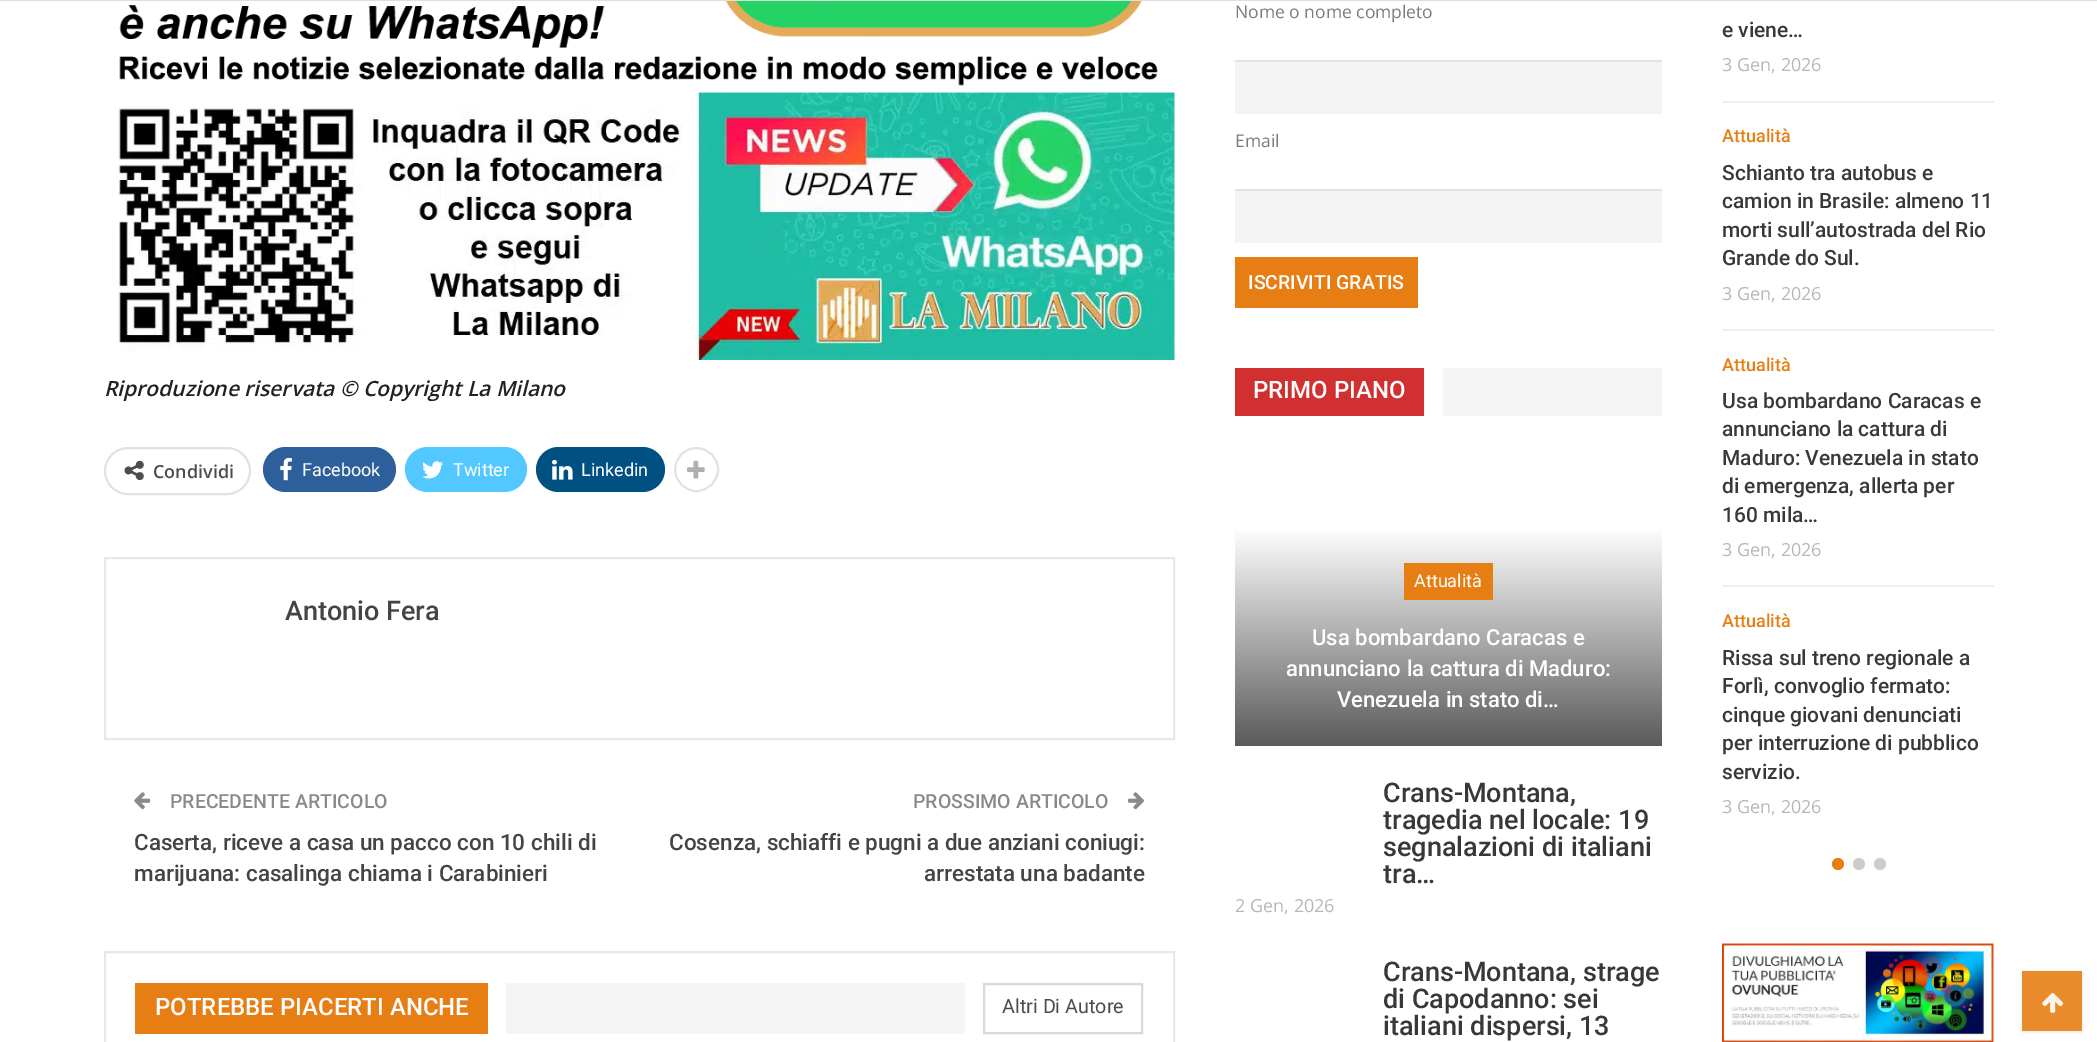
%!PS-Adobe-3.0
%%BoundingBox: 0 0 2097 1042
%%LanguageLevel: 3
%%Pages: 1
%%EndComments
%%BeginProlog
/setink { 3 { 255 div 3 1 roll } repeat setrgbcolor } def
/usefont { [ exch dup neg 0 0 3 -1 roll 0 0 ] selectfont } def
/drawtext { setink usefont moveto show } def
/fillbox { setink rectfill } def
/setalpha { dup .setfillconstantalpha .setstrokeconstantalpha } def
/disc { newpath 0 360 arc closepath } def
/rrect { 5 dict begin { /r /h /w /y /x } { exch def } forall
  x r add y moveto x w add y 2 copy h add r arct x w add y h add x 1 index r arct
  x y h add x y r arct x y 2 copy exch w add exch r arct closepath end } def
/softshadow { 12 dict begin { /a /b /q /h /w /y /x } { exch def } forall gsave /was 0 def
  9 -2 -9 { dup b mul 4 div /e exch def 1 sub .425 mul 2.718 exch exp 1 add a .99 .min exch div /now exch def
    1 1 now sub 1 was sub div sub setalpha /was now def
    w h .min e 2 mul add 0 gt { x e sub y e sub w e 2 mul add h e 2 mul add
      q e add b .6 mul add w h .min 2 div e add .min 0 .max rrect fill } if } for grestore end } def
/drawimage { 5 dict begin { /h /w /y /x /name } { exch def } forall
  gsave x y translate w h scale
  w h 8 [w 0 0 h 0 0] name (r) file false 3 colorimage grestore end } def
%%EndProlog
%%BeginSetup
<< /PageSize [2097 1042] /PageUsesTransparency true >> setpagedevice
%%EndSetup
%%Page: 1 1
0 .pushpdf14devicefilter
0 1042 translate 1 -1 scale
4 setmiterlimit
0 0 2097 1042 255 255 255 fillbox
0 0 2097 1 222 222 222 fillbox
(assets/img1.rgb) 118 1 1057 359 drawimage
(Riproduzione riservata © Copyright La Milano) 104 396 /OpenSans-SemiBoldItalic 21 33 33 33 drawtext
226 226 226 setink
2 setlinewidth
105 448 145 46 23 rrect stroke
(assets/img2.rgb) 124 460 20 21 drawimage
(Condividi) 153 478 /OpenSans-SemiBold 18 77 77 77 drawtext
45 95 154 setink
263 447 133 45 22.5 rrect fill
(assets/img3.rgb) 280 457 12 24 drawimage
(Facebook) 302 476 /Roboto-Regular 18 255 255 255 drawtext
83 199 255 setink
405 447 122 45 22.5 rrect fill
(assets/img4.rgb) 422 461 21 18 drawimage
(Twitter) 453 476 /Roboto-Regular 18 255 255 255 drawtext
0 81 130 setink
536 447 129 45 22.5 rrect fill
(assets/img5.rgb) 552 459 21 21 drawimage
(Linkedin) 581 476 /Roboto-Regular 18 255 255 255 drawtext
226 226 226 setink
696.5 469.5 21.5 disc stroke
(assets/img6.rgb) 687 460 18 19 drawimage
232 232 232 setink
105 558 1069 181 rectstroke
(Antonio Fera) 285 620 /Roboto-Medium 27 68 68 68 drawtext
(assets/img7.rgb) 134 792 17 18 drawimage
(PRECEDENTE ARTICOLO) 170 808 /Roboto-Medium 19.5 138 138 138 drawtext
(Caserta, riceve a casa un pacco con 10 chili di) 134 850 /Roboto-Medium 22.5 68 68 68 drawtext
(marijuana: casalinga chiama i Carabinieri) 134 881 /Roboto-Medium 22.5 68 68 68 drawtext
(PROSSIMO ARTICOLO) 913 808 /Roboto-Medium 19.5 138 138 138 drawtext
(assets/img8.rgb) 1128 792 16 18 drawimage
(Cosenza, schiaffi e pugni a due anziani coniugi:) 669 850 /Roboto-Medium 22.5 68 68 68 drawtext
(arrestata una badante) 924 881 /Roboto-Medium 22.5 68 68 68 drawtext
232 232 232 setink
105 952 1069 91 rectstroke
135 983 353 51 231 126 19 fillbox
(POTREBBE PIACERTI ANCHE) 155 1015 /Roboto-Medium 24 255 255 255 drawtext
506 983 459 51 245 245 245 fillbox
217 217 217 setink
984 984 158 49 rectstroke
(Altri Di Autore) 1002 1013 /Roboto-Regular 19.75 77 77 77 drawtext
(Nome o nome completo) 1235 18 /OpenSans-Regular 17.5 123 123 123 drawtext
1235 62 427 52 244 244 244 fillbox
1235 60 427 2 226 226 226 fillbox
(Email) 1235 147 /OpenSans-Regular 17.5 123 123 123 drawtext
1235 191 427 52 244 244 244 fillbox
1235 189 427 2 226 226 226 fillbox
1235 257 183 51 231 126 19 fillbox
(ISCRIVITI GRATIS) 1248 289 /Roboto-Medium 19.5 255 255 255 drawtext
1235 368 189 48 209 48 48 fillbox
(PRIMO PIANO) 1253 398 /Roboto-Medium 24 255 255 255 drawtext
1424 368 238 48 245 245 245 fillbox
1425 368 18 48 255 255 255 fillbox
gsave 1235 530 moveto 1662 530 lineto 1662 746 lineto 1235 746 lineto closepath clip newpath
<< /ShadingType 2 /ColorSpace /DeviceRGB /Coords [1448 527 1448 747] /Extend [true true] /Function << /FunctionType 2 /Domain [0 1] /C0 [1 1 1] /C1 [0.349 0.349 0.349] /N 1 >> >> shfill grestore
1404 563 89 37 231 126 19 fillbox
(Attualità) 1414 587 /Roboto-Regular 18 255 255 255 drawtext
(Usa bombardano Caracas e) 1312 645 /Roboto-Medium 22.1 255 255 255 drawtext
(annunciano la cattura di Maduro:) 1286 676 /Roboto-Medium 22.1 255 255 255 drawtext
(Venezuela in stato di…) 1337 707 /Roboto-Medium 22.1 255 255 255 drawtext
(Crans-Montana,) 1383 802 /Roboto-Medium 27 56 56 56 drawtext
(tragedia nel locale: 19) 1383 829 /Roboto-Medium 27 56 56 56 drawtext
(segnalazioni di italiani) 1383 856 /Roboto-Medium 27 56 56 56 drawtext
(tra…) 1383 883 /Roboto-Medium 27 56 56 56 drawtext
(2 Gen, 2026) 1235 912 /OpenSans-Regular 18 183 183 183 drawtext
(Crans-Montana, strage) 1383 981 /Roboto-Medium 27 56 56 56 drawtext
(di Capodanno: sei) 1383 1008 /Roboto-Medium 27 56 56 56 drawtext
(italiani dispersi, 13) 1383 1035 /Roboto-Medium 27 56 56 56 drawtext
1722 101 272 2 240 240 240 fillbox
(e viene…) 1722 37 /Roboto-Medium 21 56 56 56 drawtext
(3 Gen, 2026) 1722 71 /OpenSans-Regular 18 183 183 183 drawtext
1722 329 272 2 240 240 240 fillbox
(Attualità) 1722 142 /Roboto-Medium 18 231 126 19 drawtext
(Schianto tra autobus e) 1722 180 /Roboto-Medium 21 56 56 56 drawtext
(camion in Brasile: almeno 11) 1722 208 /Roboto-Medium 21 56 56 56 drawtext
(morti sull’autostrada del Rio) 1722 237 /Roboto-Medium 21 56 56 56 drawtext
(Grande do Sul.) 1722 265 /Roboto-Medium 21 56 56 56 drawtext
(3 Gen, 2026) 1722 300 /OpenSans-Regular 18 183 183 183 drawtext
1722 585 272 2 240 240 240 fillbox
(Attualità) 1722 371 /Roboto-Medium 18 231 126 19 drawtext
(Usa bombardano Caracas e) 1722 408 /Roboto-Medium 21 56 56 56 drawtext
(annunciano la cattura di) 1722 436 /Roboto-Medium 21 56 56 56 drawtext
(Maduro: Venezuela in stato) 1722 465 /Roboto-Medium 21 56 56 56 drawtext
(di emergenza, allerta per) 1722 493 /Roboto-Medium 21 56 56 56 drawtext
(160 mila…) 1722 522 /Roboto-Medium 21 56 56 56 drawtext
(3 Gen, 2026) 1722 556 /OpenSans-Regular 18 183 183 183 drawtext
(Attualità) 1722 627 /Roboto-Medium 18 231 126 19 drawtext
(Rissa sul treno regionale a) 1722 665 /Roboto-Medium 21 56 56 56 drawtext
(Forlì, convoglio fermato:) 1722 693 /Roboto-Medium 21 56 56 56 drawtext
(cinque giovani denunciati) 1722 722 /Roboto-Medium 21 56 56 56 drawtext
(per interruzione di pubblico) 1722 750 /Roboto-Medium 21 56 56 56 drawtext
(servizio.) 1722 779 /Roboto-Medium 21 56 56 56 drawtext
(3 Gen, 2026) 1722 813 /OpenSans-Regular 18 183 183 183 drawtext
231 126 19 setink
1838 864 6 disc fill
204 204 204 setink
1859 864 6 disc fill
1880 864 6 disc fill
(assets/img9.rgb) 1722 943 272 99 drawimage
26 26 26 setink
2022 972 60 60 0 1.5 0.09 softshadow
2022 971 60 60 233 139 43 fillbox
(assets/img10.rgb) 2042 993 22 20 drawimage
.poppdf14devicefilter showpage
%%EOF
